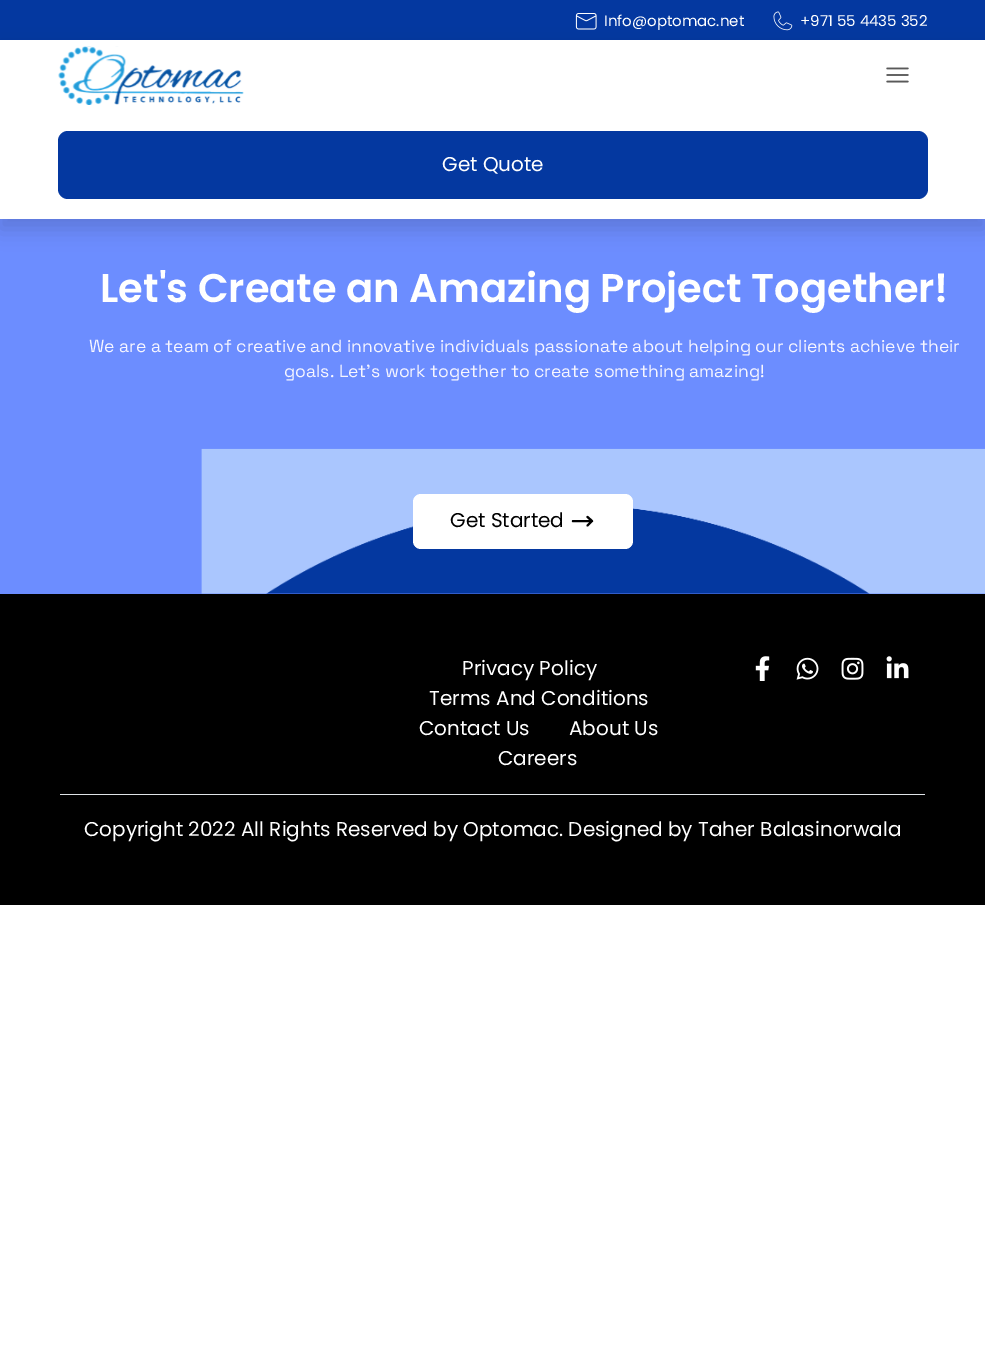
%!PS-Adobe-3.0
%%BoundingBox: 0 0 985 1369
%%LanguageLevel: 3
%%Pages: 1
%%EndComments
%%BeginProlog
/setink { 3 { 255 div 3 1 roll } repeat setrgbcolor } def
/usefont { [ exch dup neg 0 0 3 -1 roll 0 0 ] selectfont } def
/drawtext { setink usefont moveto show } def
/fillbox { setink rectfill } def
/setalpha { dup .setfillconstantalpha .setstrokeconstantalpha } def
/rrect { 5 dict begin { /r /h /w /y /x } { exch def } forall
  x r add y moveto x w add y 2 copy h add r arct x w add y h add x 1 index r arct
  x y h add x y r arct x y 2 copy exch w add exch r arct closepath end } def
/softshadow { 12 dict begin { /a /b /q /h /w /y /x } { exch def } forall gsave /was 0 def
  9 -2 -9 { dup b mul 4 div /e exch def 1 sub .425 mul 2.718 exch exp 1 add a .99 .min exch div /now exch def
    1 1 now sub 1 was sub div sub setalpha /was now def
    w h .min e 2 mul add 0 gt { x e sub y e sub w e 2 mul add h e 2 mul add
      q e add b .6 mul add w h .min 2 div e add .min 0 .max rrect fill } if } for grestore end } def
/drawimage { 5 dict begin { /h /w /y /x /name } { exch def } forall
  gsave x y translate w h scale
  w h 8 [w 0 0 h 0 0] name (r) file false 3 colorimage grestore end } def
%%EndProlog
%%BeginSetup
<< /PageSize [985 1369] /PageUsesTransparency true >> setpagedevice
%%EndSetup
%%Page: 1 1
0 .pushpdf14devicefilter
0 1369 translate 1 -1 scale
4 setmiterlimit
0 0 985 1369 255 255 255 fillbox
0 0 985 40 4 56 160 fillbox
(assets/img1.rgb) 575 13 22 17 drawimage
(Info@optomac.net) 604 26 /Poppins-Regular 15 255 255 255 drawtext
(assets/img2.rgb) 773 11 20 20 drawimage
(+971 55 4435 352) 800 26 /Poppins-Regular 15 255 255 255 drawtext
0 219 985 375 108 141 255 fillbox
gsave
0 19 moveto 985 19 lineto 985 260 lineto 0 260 lineto closepath 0 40 moveto 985 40 lineto 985 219 lineto 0 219 lineto closepath eoclip newpath
0 0 0 setink
0 50 985 179 0 10 0.15 softshadow
grestore
(assets/img3.rgb) 58 46 186 59 drawimage
(assets/img4.rgb) 886 67 23 16 drawimage
4 56 160 setink
58 131 870 68 10 rrect fill
(Get Quote) 442 171 /Poppins-Regular 20 255 255 255 drawtext
(Let's Create an Amazing Project Together!) 100 302 /Poppins-SemiBold 40 255 255 255 drawtext
(We are a team of creative and innovative individuals passionate about helping our clients achieve their) 89 352 /SpaceGrotesk-Regular 17.5 247 246 255 drawtext
(goals. Let's work together to create something amazing!) 284 377 /SpaceGrotesk-Regular 17.5 247 246 255 drawtext
(assets/img5.rgb) 201 448 784 146 drawimage
255 255 255 setink
413 494 220 55 8 rrect fill
(Get Started) 450 527 /Poppins-Regular 20 0 0 0 drawtext
2.1 setlinewidth
1 setlinecap
1 setlinejoin
587.5 517 moveto 592 521 lineto 592 521 moveto 587.5 525.5 lineto 592 521 moveto 573 521 lineto stroke
0 594 985 311 0 0 0 fillbox
60 794 865 1 222 226 230 fillbox
(Privacy Policy) 462 675 /Poppins-Regular 20 255 255 255 drawtext
(Terms And Conditions) 429 705 /Poppins-Regular 20 255 255 255 drawtext
(Contact Us) 419 735 /Poppins-Regular 20 255 255 255 drawtext
(About Us) 569 735 /Poppins-Regular 20 255 255 255 drawtext
(Careers) 498 765 /Poppins-Regular 20 255 255 255 drawtext
(assets/img6.rgb) 755 656 15 25 drawimage
(assets/img7.rgb) 796 657 23 23 drawimage
(assets/img8.rgb) 841 657 23 23 drawimage
(assets/img9.rgb) 886 656 23 23 drawimage
(Copyright 2022 All Rights Reserved by Optomac. Designed by Taher Balasinorwala) 84 836 /Poppins-Regular 20 255 255 255 drawtext
.poppdf14devicefilter showpage
%%EOF
